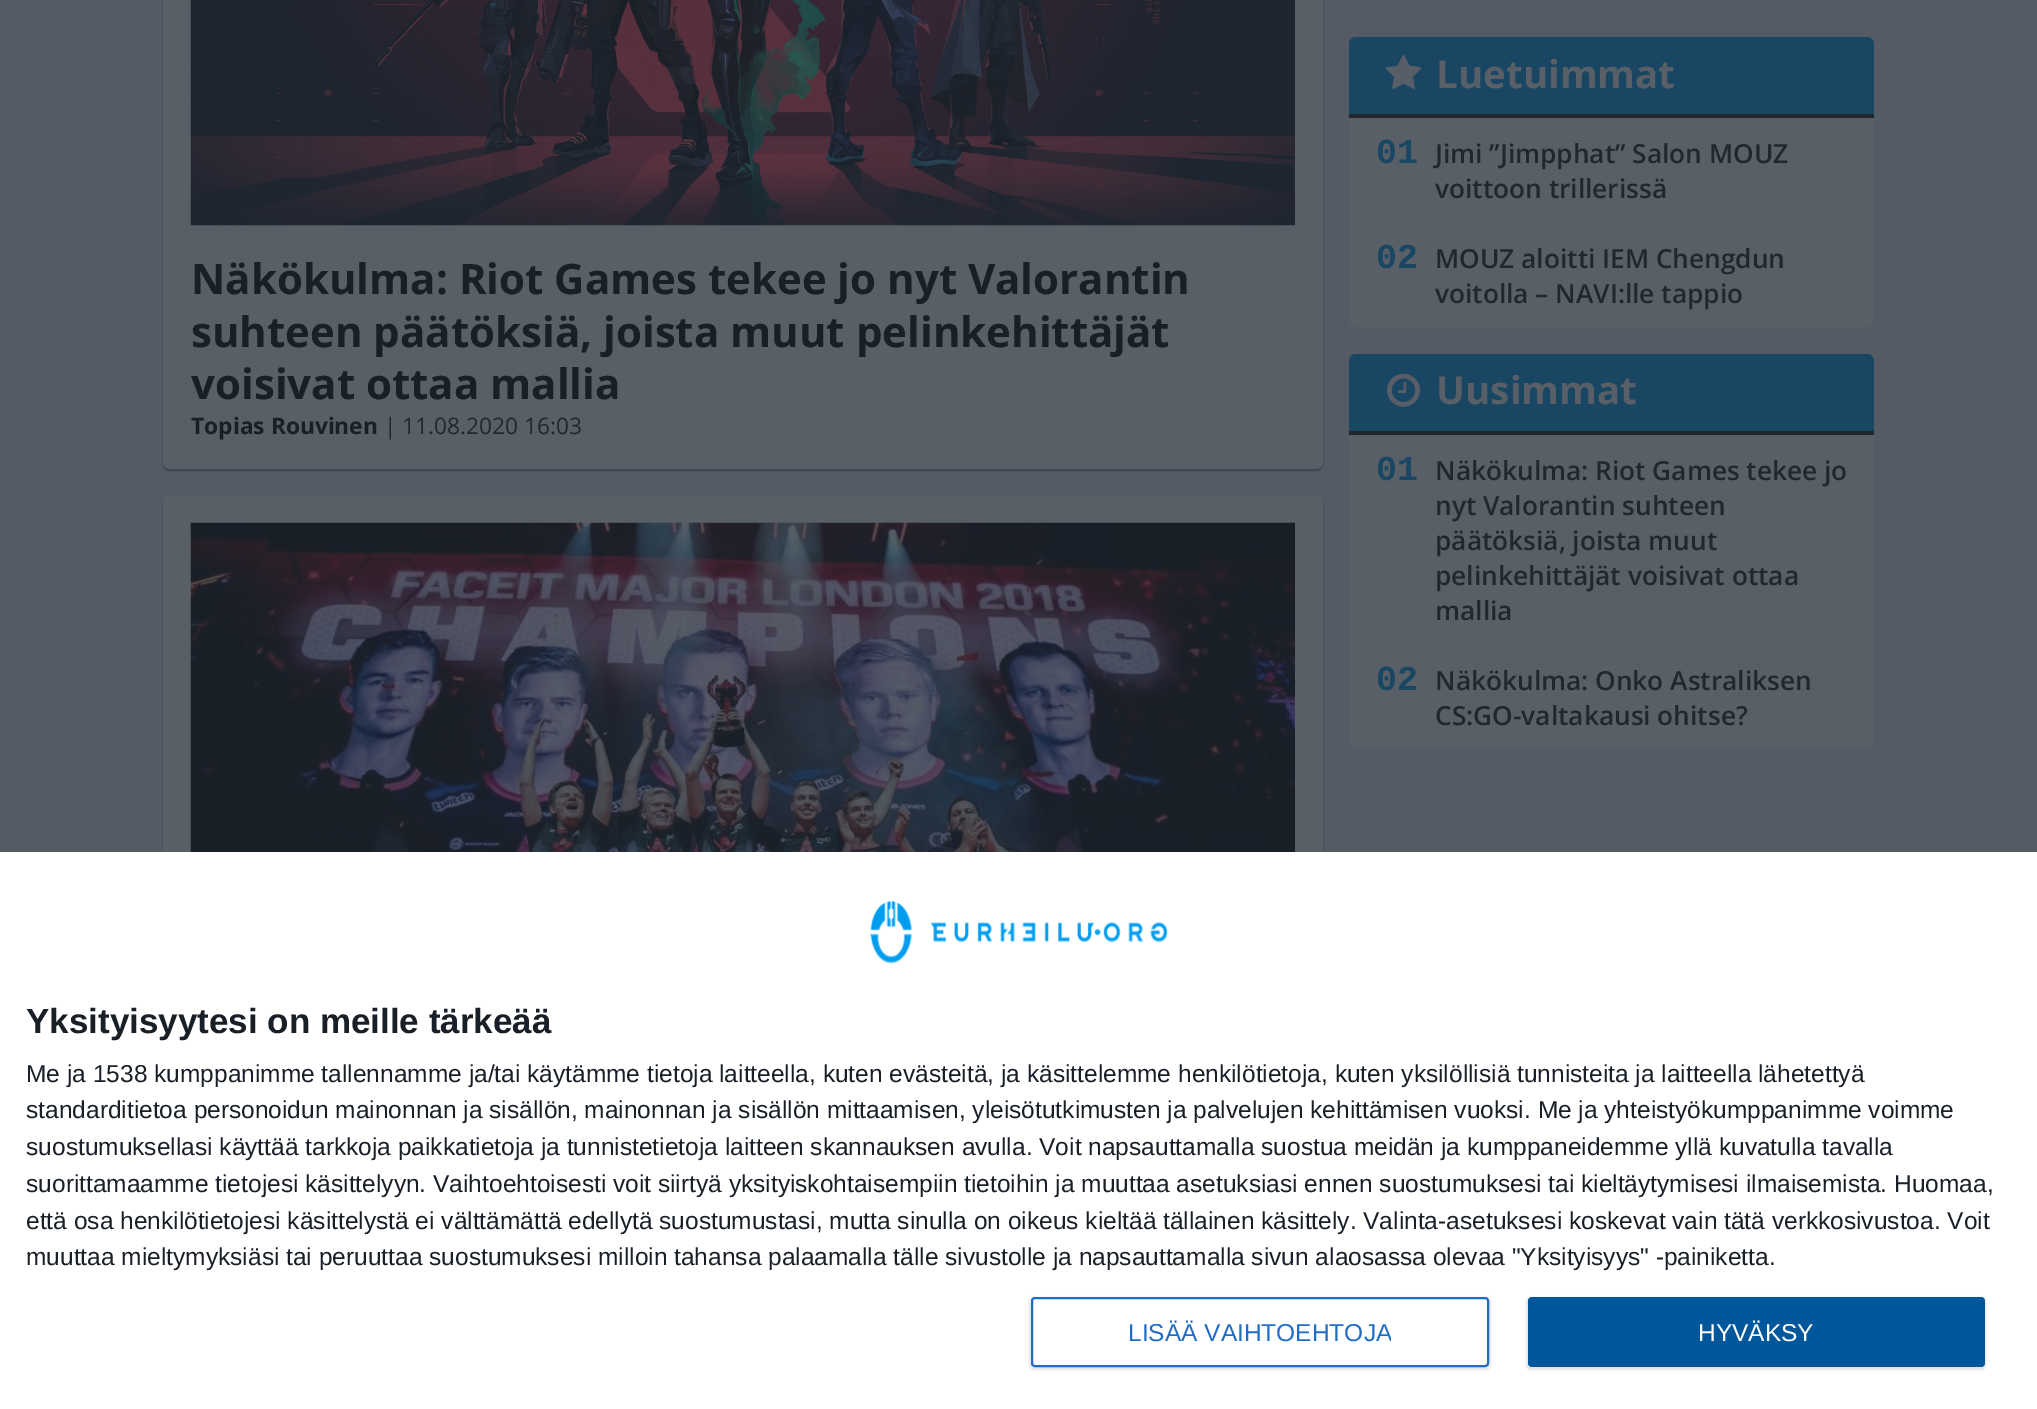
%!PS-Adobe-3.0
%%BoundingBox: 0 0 2037 1409
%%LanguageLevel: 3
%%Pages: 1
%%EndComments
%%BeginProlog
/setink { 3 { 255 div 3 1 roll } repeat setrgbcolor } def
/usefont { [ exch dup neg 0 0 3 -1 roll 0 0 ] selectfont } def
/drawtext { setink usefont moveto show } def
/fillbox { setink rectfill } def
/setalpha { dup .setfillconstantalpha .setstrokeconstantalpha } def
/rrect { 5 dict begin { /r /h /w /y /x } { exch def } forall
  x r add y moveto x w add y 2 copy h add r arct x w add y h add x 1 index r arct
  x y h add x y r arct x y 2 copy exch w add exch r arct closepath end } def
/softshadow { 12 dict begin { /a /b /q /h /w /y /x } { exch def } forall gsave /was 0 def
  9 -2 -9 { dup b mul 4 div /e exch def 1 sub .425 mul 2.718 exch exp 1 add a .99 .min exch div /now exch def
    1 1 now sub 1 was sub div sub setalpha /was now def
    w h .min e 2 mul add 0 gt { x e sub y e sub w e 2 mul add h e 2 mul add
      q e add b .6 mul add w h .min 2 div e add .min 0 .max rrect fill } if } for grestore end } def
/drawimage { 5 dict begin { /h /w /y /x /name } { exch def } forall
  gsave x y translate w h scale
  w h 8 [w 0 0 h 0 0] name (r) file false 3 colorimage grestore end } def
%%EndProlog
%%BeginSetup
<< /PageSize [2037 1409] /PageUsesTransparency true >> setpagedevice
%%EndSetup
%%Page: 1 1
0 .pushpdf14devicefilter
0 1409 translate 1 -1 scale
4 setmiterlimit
0 0 2037 1409 85 91 100 fillbox
33 40 52 setink
163 -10 1160 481 7 1 0.5 softshadow
89 95 103 setink
163 -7 1160 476 7 rrect fill
(assets/img1.rgb) 190 0 1105 226 drawimage
(Näkökulma: Riot Games tekee jo nyt Valorantin) 191 294 /OpenSans-Bold 42 25 31 39 drawtext
(suhteen päätöksiä, joista muut pelinkehittäjät) 191 347 /OpenSans-Bold 42 25 31 39 drawtext
(voisivat ottaa mallia) 191 399 /OpenSans-Bold 42 25 31 39 drawtext
(Topias Rouvinen) 191 434 /OpenSans-Bold 22.75 25 31 39 drawtext
(| 11.08.2020 16:03) 384 434 /OpenSans-Regular 22.75 33 39 47 drawtext
33 40 52 setink
163 497 1160 840 7 1 0.5 softshadow
89 95 103 setink
163 495 1160 840 7 rrect fill
(assets/img2.rgb) 190 522 1105 330 drawimage
1349 37 525 290 7 rrect fill
25 70 99 setink
1356 37 moveto 1867 37 lineto 1871 37 1874 40 1874 44 curveto 1874 117 lineto 1349 117 lineto 1349 44 lineto 1349 40 1352 37 1356 37 curveto closepath fill
1349 114 525 4 33 39 47 fillbox
(assets/img3.rgb) 1385 55 37 34 drawimage
(Luetuimmat) 1436 88 /OpenSans-Bold 38.5 89 95 103 drawtext
(01) 1376 163 /LiberationMono-Bold 35 25 70 99 drawtext
(Jimi ”Jimpphat” Salon MOUZ) 1435 163 /OpenSans-SemiBold 26.25 33 39 47 drawtext
(voittoon trillerissä) 1435 198 /OpenSans-SemiBold 26.25 33 39 47 drawtext
(02) 1376 268 /LiberationMono-Bold 35 25 70 99 drawtext
(MOUZ aloitti IEM Chengdun) 1435 268 /OpenSans-SemiBold 26.25 33 39 47 drawtext
(voitolla – NAVI:lle tappio) 1435 303 /OpenSans-SemiBold 26.25 33 39 47 drawtext
89 95 103 setink
1349 354 525 395 7 rrect fill
25 70 99 setink
1356 354 moveto 1867 354 lineto 1871 354 1874 357 1874 361 curveto 1874 434 lineto 1349 434 lineto 1349 361 lineto 1349 357 1352 354 1356 354 curveto closepath fill
1349 431 525 4 33 39 47 fillbox
(assets/img4.rgb) 1387 373 33 34 drawimage
(Uusimmat) 1436 404 /OpenSans-Bold 38.5 89 95 103 drawtext
(01) 1376 480 /LiberationMono-Bold 35 25 70 99 drawtext
(Näkökulma: Riot Games tekee jo) 1435 480 /OpenSans-SemiBold 26.25 33 39 47 drawtext
(nyt Valorantin suhteen) 1435 515 /OpenSans-SemiBold 26.25 33 39 47 drawtext
(päätöksiä, joista muut) 1435 550 /OpenSans-SemiBold 26.25 33 39 47 drawtext
(pelinkehittäjät voisivat ottaa) 1435 585 /OpenSans-SemiBold 26.25 33 39 47 drawtext
(mallia) 1435 620 /OpenSans-SemiBold 26.25 33 39 47 drawtext
(02) 1376 690 /LiberationMono-Bold 35 25 70 99 drawtext
(Näkökulma: Onko Astraliksen) 1435 690 /OpenSans-SemiBold 26.25 33 39 47 drawtext
(CS:GO-valtakausi ohitse?) 1435 725 /OpenSans-SemiBold 26.25 33 39 47 drawtext
0 852 2037 557 255 255 255 fillbox
(assets/img5.rgb) 869 900 299 64 drawimage
(Yksityisyytesi on meille tärkeää) 26 1033 /LiberationSans-Bold 35 25 31 39 drawtext
(Me ja 1538 kumppanimme tallennamme ja/tai käytämme tietoja laitteella, kuten evästeitä, ja käsittelemme henkilötietoja, kuten yksilöllisiä tunnisteita ja laitteella lähetettyä) 26 1082 /LiberationSans-Regular 24.5 25 31 39 drawtext
(standarditietoa personoidun mainonnan ja sisällön, mainonnan ja sisällön mittaamisen, yleisötutkimusten ja palvelujen kehittämisen vuoksi. Me ja yhteistyökumppanimme voimme) 26 1118 /LiberationSans-Regular 24.5 25 31 39 drawtext
(suostumuksellasi käyttää tarkkoja paikkatietoja ja tunnistetietoja laitteen skannauksen avulla. Voit napsauttamalla suostua meidän ja kumppaneidemme yllä kuvatulla tavalla) 26 1155 /LiberationSans-Regular 24.5 25 31 39 drawtext
(suorittamaamme tietojesi käsittelyyn. Vaihtoehtoisesti voit siirtyä yksityiskohtaisempiin tietoihin ja muuttaa asetuksiasi ennen suostumuksesi tai kieltäytymisesi ilmaisemista. Huomaa,) 26 1192 /LiberationSans-Regular 24.5 25 31 39 drawtext
(että osa henkilötietojesi käsittelystä ei välttämättä edellytä suostumustasi, mutta sinulla on oikeus kieltää tällainen käsittely. Valinta-asetuksesi koskevat vain tätä verkkosivustoa. Voit) 26 1229 /LiberationSans-Regular 24.5 25 31 39 drawtext
(muuttaa mieltymyksiäsi tai peruuttaa suostumuksesi milloin tahansa palaamalla tälle sivustolle ja napsauttamalla sivun alaosassa olevaa "Yksityisyys" -painiketta.) 26 1265 /LiberationSans-Regular 24.5 25 31 39 drawtext
0 0 0 setink
1029 1297 462 73 5 1 0.1 softshadow
255 255 255 setink
1032 1298 456 68 3 rrect gsave fill grestore
32 109 197 setink
2 setlinewidth
stroke
gsave
1129 1320 262 24 rectclip
(LISÄÄ VAIHTOEHTOJA) 1128 1341 /LiberationSans-Regular 24.5 32 109 197 drawtext
grestore
0 0 0 setink
1526 1297 460 73 5 1 0.1 softshadow
1 87 155 setink
1528 1297 457 70 4 rrect fill
(HYVÄKSY) 1698 1341 /LiberationSans-Regular 24.5 255 255 255 drawtext
.poppdf14devicefilter showpage
%%EOF
